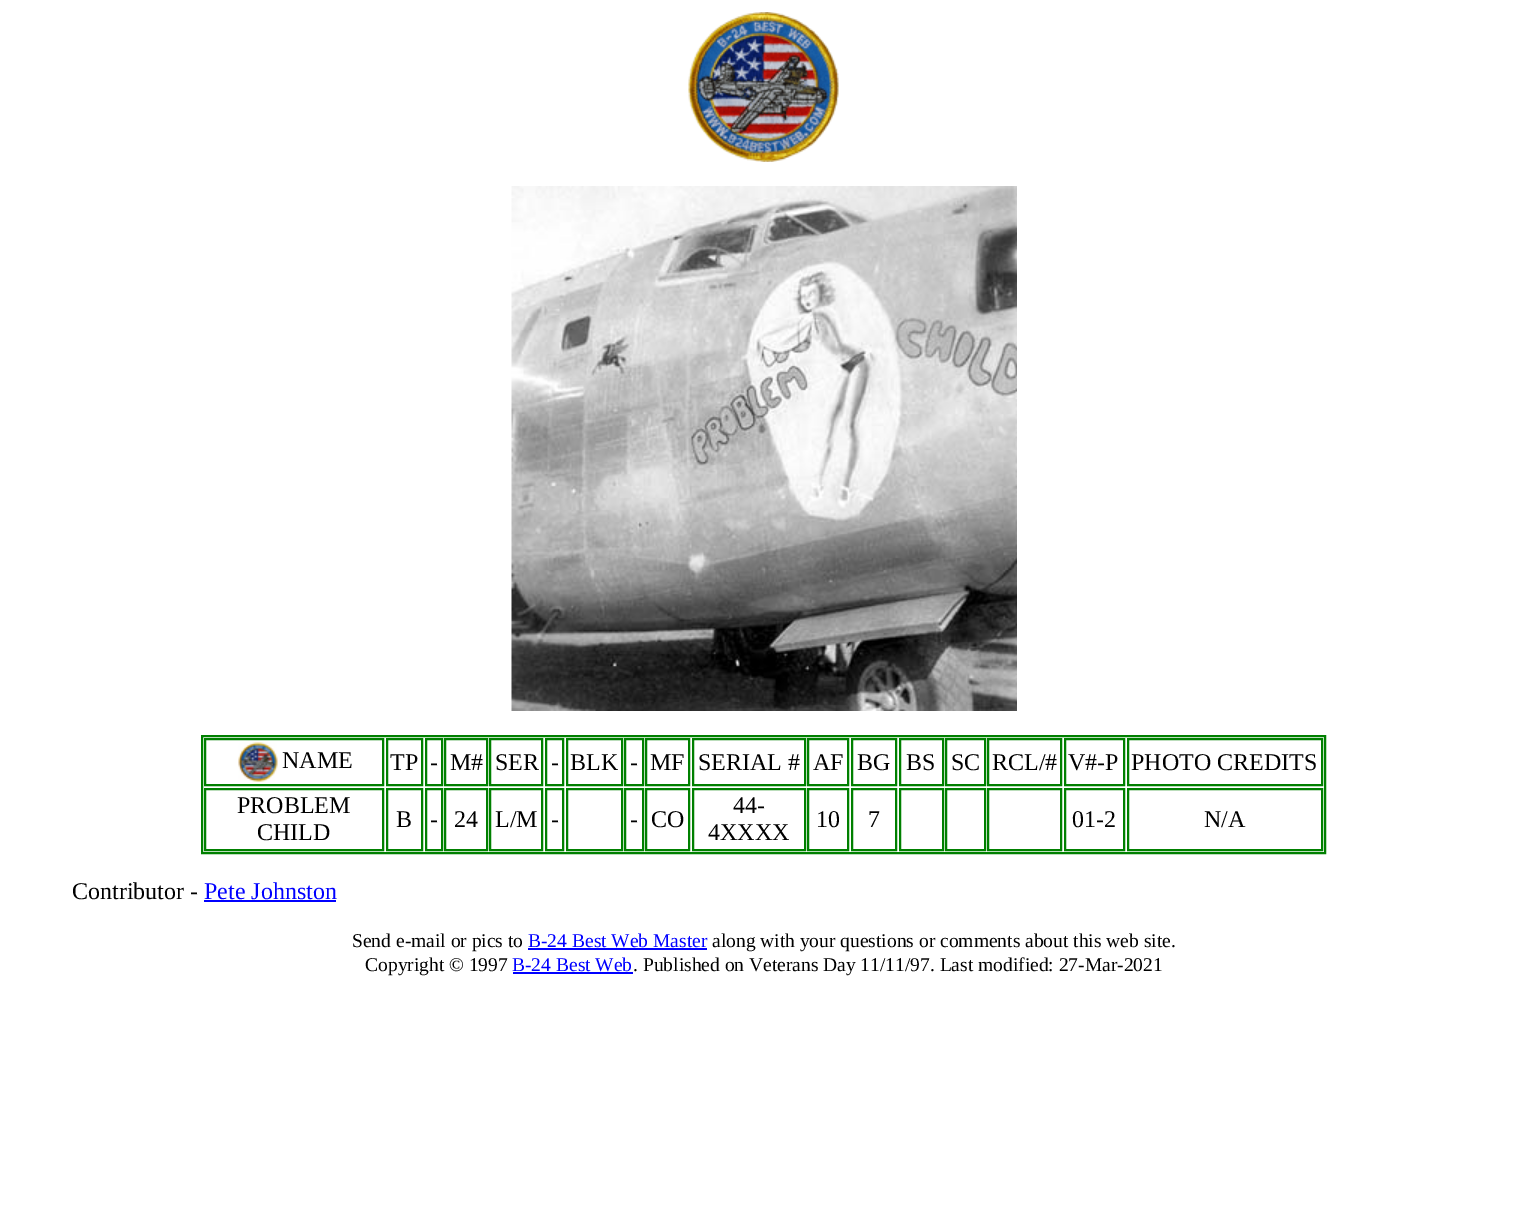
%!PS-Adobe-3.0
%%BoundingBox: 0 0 1526 1231
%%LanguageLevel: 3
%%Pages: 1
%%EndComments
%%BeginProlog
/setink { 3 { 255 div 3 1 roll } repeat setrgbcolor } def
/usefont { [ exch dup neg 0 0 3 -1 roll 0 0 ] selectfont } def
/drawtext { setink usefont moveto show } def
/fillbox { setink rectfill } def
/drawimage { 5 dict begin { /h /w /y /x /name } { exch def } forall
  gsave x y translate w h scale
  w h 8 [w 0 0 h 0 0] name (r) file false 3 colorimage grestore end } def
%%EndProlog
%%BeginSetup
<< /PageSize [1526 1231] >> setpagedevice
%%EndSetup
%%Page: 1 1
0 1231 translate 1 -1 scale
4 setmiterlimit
0 0 1526 1231 255 255 255 fillbox
(assets/img1.rgb) 688 12 151 150 drawimage
(assets/img2.rgb) 511 186 506 525 drawimage
0 128 0 setink
2 setlinewidth
202 736 1123 117 rectstroke
205 739 178 46 rectstroke
(assets/img3.rgb) 238 742 40 40 drawimage
(NAME) 282 768 /LiberationSerif-Regular 24 0 0 0 drawtext
0 128 0 setink
387 739 35 46 rectstroke
(TP) 390 770 /LiberationSerif-Regular 24 0 0 0 drawtext
0 128 0 setink
426 739 16 46 rectstroke
(-) 430 770 /LiberationSerif-Regular 24 0 0 0 drawtext
0 128 0 setink
445 739 42 46 rectstroke
(M#) 450 770 /LiberationSerif-Regular 24 0 0 0 drawtext
0 128 0 setink
490 739 52 46 rectstroke
(SER) 495 770 /LiberationSerif-Regular 24 0 0 0 drawtext
0 128 0 setink
546 739 17 46 rectstroke
(-) 551 770 /LiberationSerif-Regular 24 0 0 0 drawtext
0 128 0 setink
567 739 55 46 rectstroke
(BLK) 570 770 /LiberationSerif-Regular 24 0 0 0 drawtext
0 128 0 setink
625 739 18 46 rectstroke
(-) 630 770 /LiberationSerif-Regular 24 0 0 0 drawtext
0 128 0 setink
646 739 43 46 rectstroke
(MF) 650 770 /LiberationSerif-Regular 24 0 0 0 drawtext
0 128 0 setink
693 739 112 46 rectstroke
(SERIAL #) 698 770 /LiberationSerif-Regular 24 0 0 0 drawtext
0 128 0 setink
808 739 40 46 rectstroke
(AF) 813 770 /LiberationSerif-Regular 24 0 0 0 drawtext
0 128 0 setink
852 739 44 46 rectstroke
(BG) 857 770 /LiberationSerif-Regular 24 0 0 0 drawtext
0 128 0 setink
900 739 43 46 rectstroke
(BS) 906 770 /LiberationSerif-Regular 24 0 0 0 drawtext
0 128 0 setink
946 739 39 46 rectstroke
(SC) 951 770 /LiberationSerif-Regular 24 0 0 0 drawtext
0 128 0 setink
988 739 73 46 rectstroke
(RCL/#) 992 770 /LiberationSerif-Regular 24 0 0 0 drawtext
0 128 0 setink
1065 739 59 46 rectstroke
(V#-P) 1068 770 /LiberationSerif-Regular 24 0 0 0 drawtext
0 128 0 setink
1128 739 194 46 rectstroke
(PHOTO CREDITS) 1131 770 /LiberationSerif-Regular 24 0 0 0 drawtext
0 128 0 setink
205 789 178 61 rectstroke
(PROBLEM) 237 813 /LiberationSerif-Regular 24 0 0 0 drawtext
(CHILD) 257 840 /LiberationSerif-Regular 24 0 0 0 drawtext
0 128 0 setink
387 789 35 61 rectstroke
(B) 396 827 /LiberationSerif-Regular 24 0 0 0 drawtext
0 128 0 setink
426 789 16 61 rectstroke
(-) 430 827 /LiberationSerif-Regular 24 0 0 0 drawtext
0 128 0 setink
445 789 42 61 rectstroke
(24) 454 827 /LiberationSerif-Regular 24 0 0 0 drawtext
0 128 0 setink
490 789 52 61 rectstroke
(L/M) 495 827 /LiberationSerif-Regular 24 0 0 0 drawtext
0 128 0 setink
546 789 17 61 rectstroke
(-) 551 827 /LiberationSerif-Regular 24 0 0 0 drawtext
0 128 0 setink
567 789 55 61 rectstroke
625 789 18 61 rectstroke
(-) 630 827 /LiberationSerif-Regular 24 0 0 0 drawtext
0 128 0 setink
646 789 43 61 rectstroke
(CO) 651 827 /LiberationSerif-Regular 24 0 0 0 drawtext
0 128 0 setink
693 789 112 61 rectstroke
(44-) 733 813 /LiberationSerif-Regular 24 0 0 0 drawtext
(4XXXX) 708 840 /LiberationSerif-Regular 24 0 0 0 drawtext
0 128 0 setink
808 789 40 61 rectstroke
(10) 816 827 /LiberationSerif-Regular 24 0 0 0 drawtext
0 128 0 setink
852 789 44 61 rectstroke
(7) 868 827 /LiberationSerif-Regular 24 0 0 0 drawtext
0 128 0 setink
900 789 43 61 rectstroke
946 789 39 61 rectstroke
988 789 73 61 rectstroke
1065 789 59 61 rectstroke
(01-2) 1072 827 /LiberationSerif-Regular 24 0 0 0 drawtext
0 128 0 setink
1128 789 194 61 rectstroke
(N/A) 1204 827 /LiberationSerif-Regular 24 0 0 0 drawtext
(Contributor -) 72 899 /LiberationSerif-Regular 24 0 0 0 drawtext
(Pete Johnston) 204 899 /LiberationSerif-Regular 24 0 0 255 drawtext
204 900 132 2 0 0 255 fillbox
(Send e-mail or pics to) 352 947 /LiberationSerif-Regular 19.5 0 0 0 drawtext
(B-24 Best Web Master) 528 947 /LiberationSerif-Regular 19.5 0 0 255 drawtext
528 948 179 2 0 0 255 fillbox
(along with your questions or comments about this web site.) 712 947 /LiberationSerif-Regular 19.5 0 0 0 drawtext
(Copyright © 1997) 365 971 /LiberationSerif-Regular 19.5 0 0 0 drawtext
(B-24 Best Web) 512 971 /LiberationSerif-Regular 19.5 0 0 255 drawtext
(. Published on Veterans Day 11/11/97. Last modified: 27-Mar-2021) 633 971 /LiberationSerif-Regular 19.5 0 0 0 drawtext
513 972 120 2 0 0 255 fillbox
showpage
%%EOF
